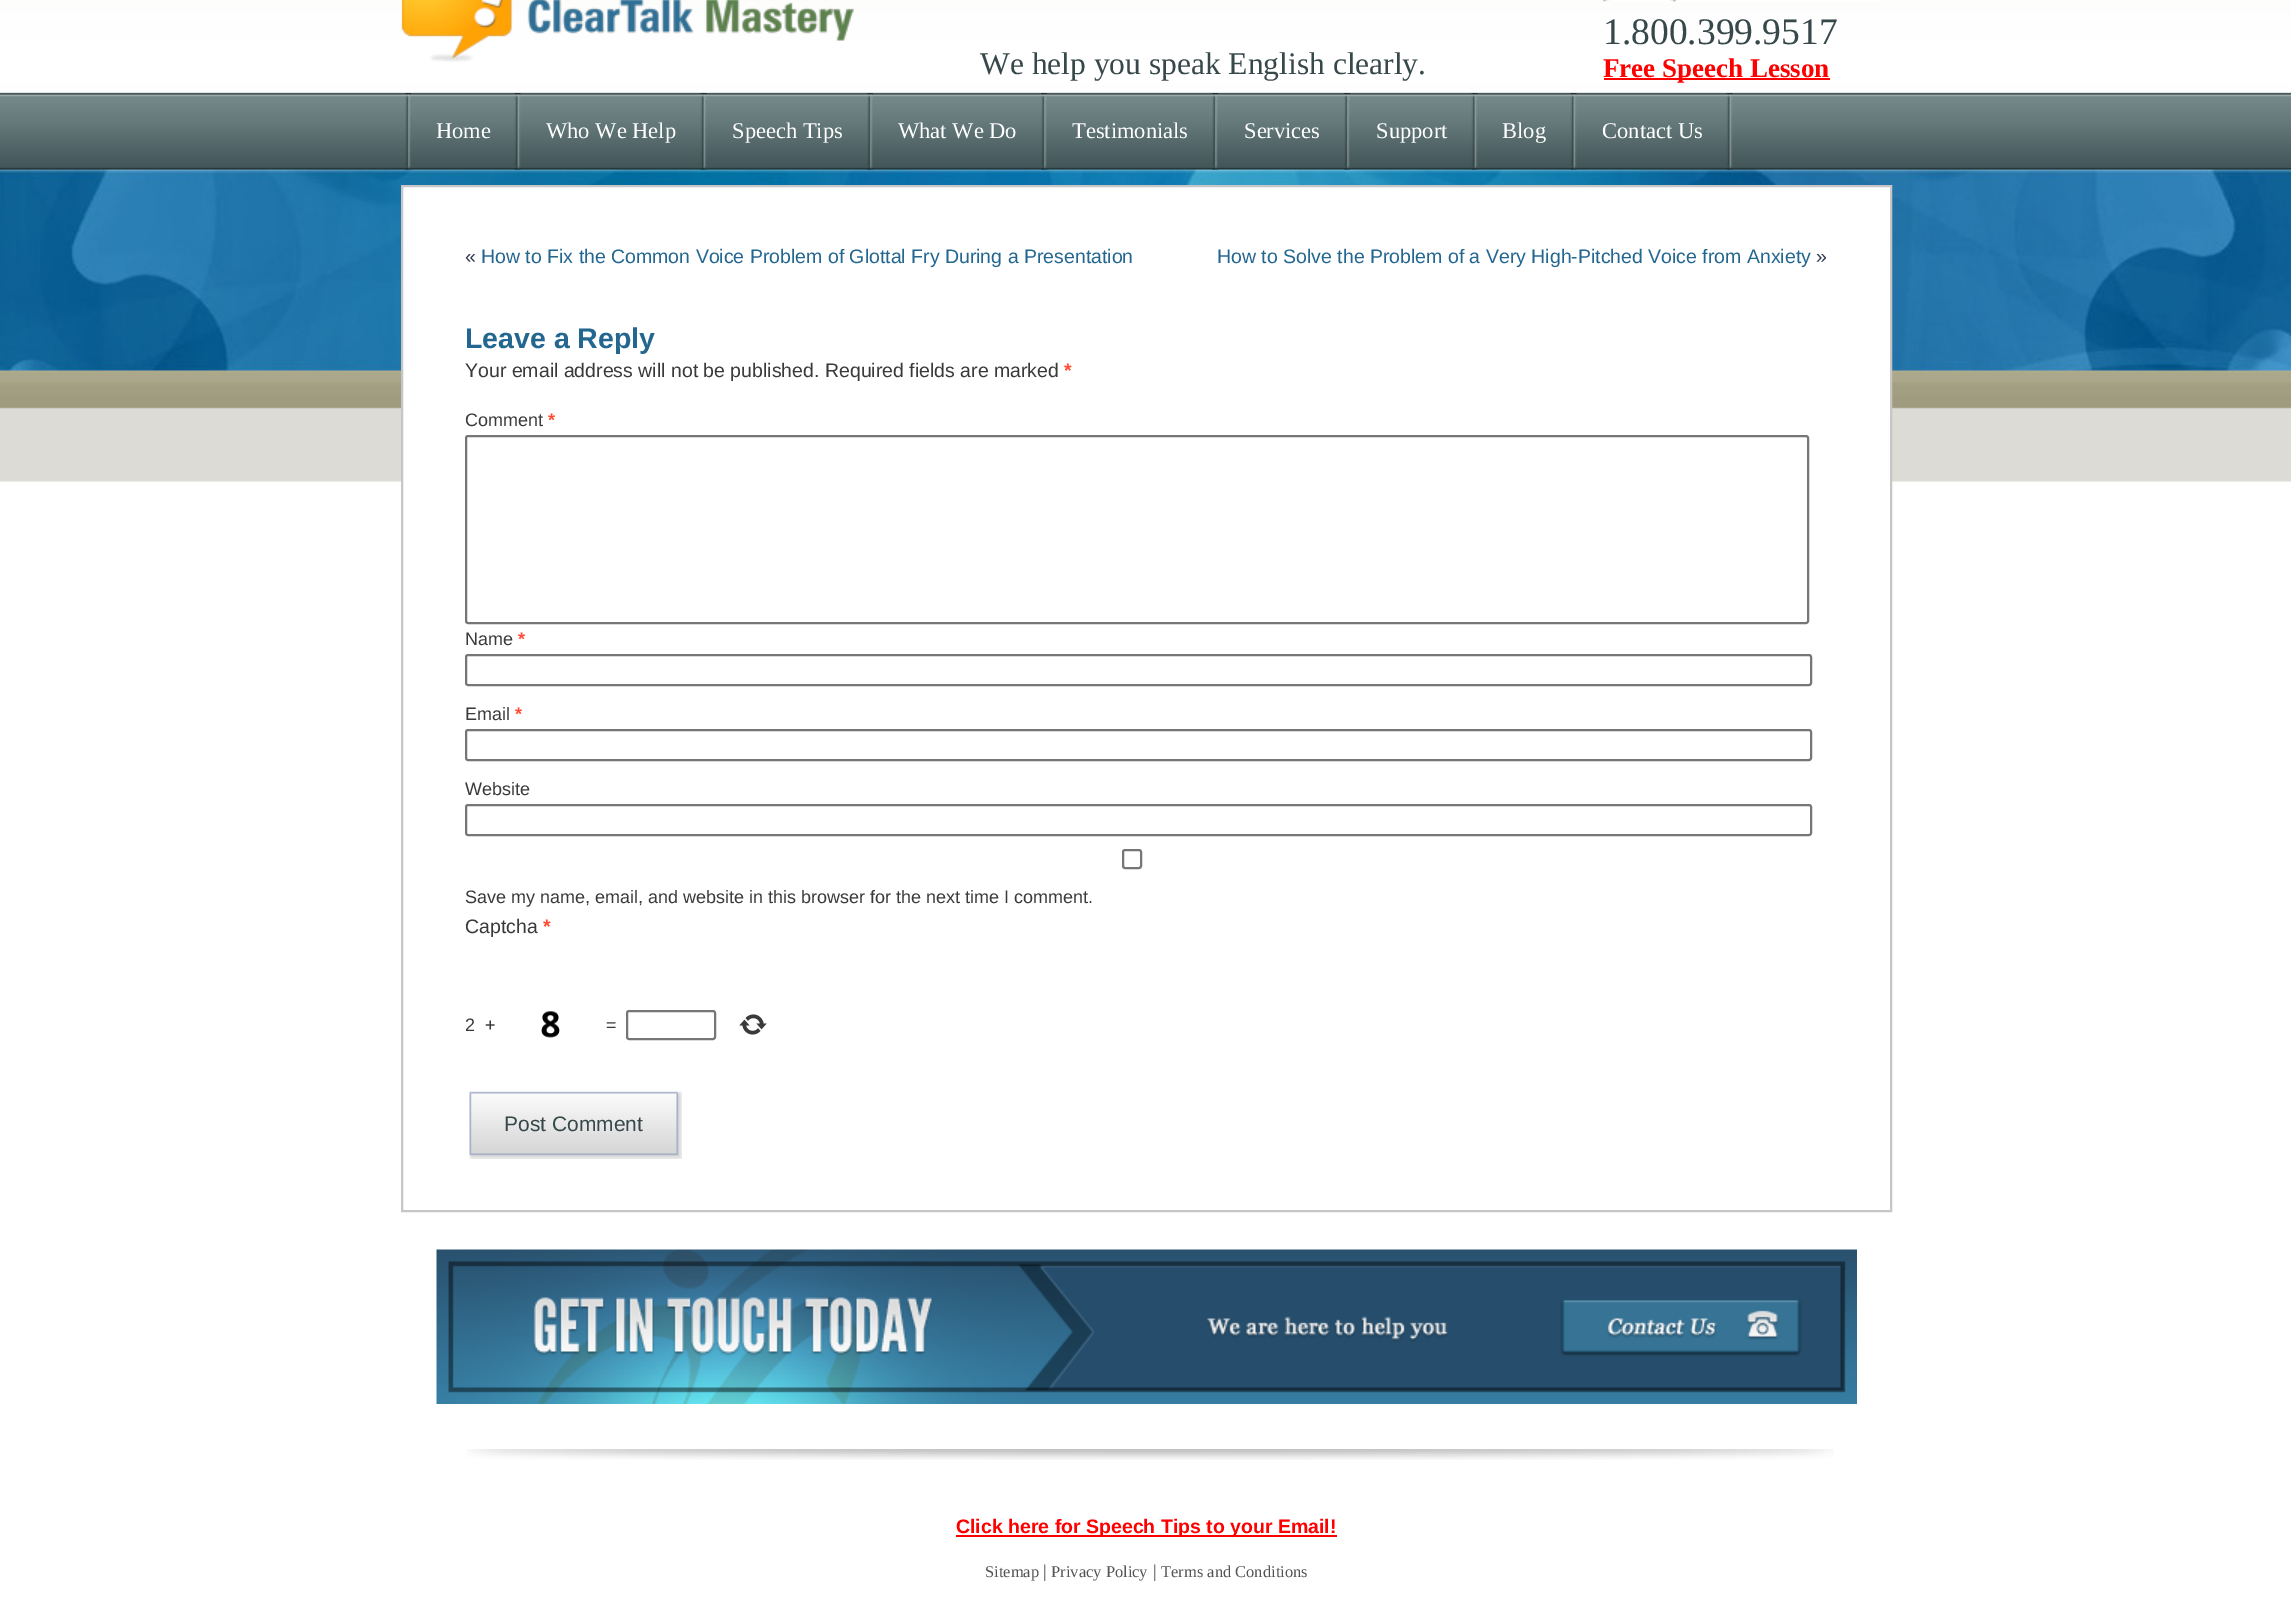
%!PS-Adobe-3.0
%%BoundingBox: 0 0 2291 1615
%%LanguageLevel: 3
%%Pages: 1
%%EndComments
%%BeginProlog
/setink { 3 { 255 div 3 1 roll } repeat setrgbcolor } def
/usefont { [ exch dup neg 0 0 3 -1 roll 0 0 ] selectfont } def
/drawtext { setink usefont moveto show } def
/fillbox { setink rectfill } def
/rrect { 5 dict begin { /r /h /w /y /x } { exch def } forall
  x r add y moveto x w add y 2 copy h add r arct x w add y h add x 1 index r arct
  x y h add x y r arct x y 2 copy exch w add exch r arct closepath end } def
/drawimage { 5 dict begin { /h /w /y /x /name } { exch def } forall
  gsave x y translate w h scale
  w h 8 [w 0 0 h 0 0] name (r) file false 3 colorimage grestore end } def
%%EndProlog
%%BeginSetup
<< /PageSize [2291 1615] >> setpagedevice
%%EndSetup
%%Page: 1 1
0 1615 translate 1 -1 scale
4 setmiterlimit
0 0 2291 1615 255 255 255 fillbox
(assets/img1.rgb) 0 0 2291 482 drawimage
(assets/img2.rgb) 401 0 453 62 drawimage
(assets/img3.rgb) 1603 0 279 2 drawimage
(We help you speak English clearly.) 980 74 /LiberationSerif-Regular 31.5 55 72 74 drawtext
(1.800.399.9517) 1603 44 /LiberationSerif-Regular 37.5 55 72 74 drawtext
1604 78 226 2 255 0 0 fillbox
(Free Speech Lesson) 1603 77 /LiberationSerif-Bold 27 255 0 0 drawtext
(assets/img4.rgb) 405 93 6 77 drawimage
(Home) 436 138 /LiberationSerif-Regular 22.5 255 255 255 drawtext
(assets/img5.rgb) 514 93 7 77 drawimage
(Who We Help) 546 138 /LiberationSerif-Regular 22.5 255 255 255 drawtext
(assets/img6.rgb) 700 93 7 77 drawimage
(Speech Tips) 732 138 /LiberationSerif-Regular 22.5 255 255 255 drawtext
(assets/img7.rgb) 867 93 6 77 drawimage
(What We Do) 898 138 /LiberationSerif-Regular 22.5 255 255 255 drawtext
(assets/img8.rgb) 1041 93 6 77 drawimage
(Testimonials) 1072 138 /LiberationSerif-Regular 22.5 255 255 255 drawtext
(assets/img9.rgb) 1212 93 6 77 drawimage
(Services) 1244 138 /LiberationSerif-Regular 22.5 255 255 255 drawtext
(assets/img10.rgb) 1344 93 6 77 drawimage
(Support) 1376 138 /LiberationSerif-Regular 22.5 255 255 255 drawtext
(assets/img11.rgb) 1471 93 7 77 drawimage
(Blog) 1502 138 /LiberationSerif-Regular 22.5 255 255 255 drawtext
(assets/img12.rgb) 1570 93 7 77 drawimage
(Contact Us) 1602 138 /LiberationSerif-Regular 22.5 255 255 255 drawtext
(assets/img13.rgb) 1726 93 7 77 drawimage
403 187 1487 295 255 255 255 fillbox
199 197 198 setink
2 setlinewidth
402 186 1489 1025 rectstroke
(«) 465 263 /LiberationSans-Regular 19.5 48 58 79 drawtext
(How to Fix the Common Voice Problem of Glottal Fry During a Presentation) 481 263 /LiberationSans-Regular 19.5 35 102 144 drawtext
(How to Solve the Problem of a Very High-Pitched Voice from Anxiety) 1217 263 /LiberationSans-Regular 19.5 35 102 144 drawtext
(») 1816 263 /LiberationSans-Regular 19.5 48 58 79 drawtext
(Leave a Reply) 465 348 /LiberationSans-Bold 28.5 35 102 144 drawtext
(Your email address will not be published. Required fields are marked) 465 377 /LiberationSans-Regular 19.5 58 58 58 drawtext
(*) 1064 377 /LiberationSans-Bold 19.5 255 75 51 drawtext
(Comment) 465 426 /LiberationSans-Regular 18 58 58 58 drawtext
(*) 548 426 /LiberationSans-Bold 18 255 75 51 drawtext
118 118 118 setink
466 436 1342 187 2 rrect stroke
(Name) 465 645 /LiberationSans-Regular 18 58 58 58 drawtext
(*) 518 645 /LiberationSans-Bold 18 255 75 51 drawtext
118 118 118 setink
466 655 1345 30 2 rrect stroke
(Email) 465 720 /LiberationSans-Regular 18 58 58 58 drawtext
(*) 515 720 /LiberationSans-Bold 18 255 75 51 drawtext
118 118 118 setink
466 730 1345 30 2 rrect stroke
(Website) 465 795 /LiberationSans-Regular 18 58 58 58 drawtext
118 118 118 setink
466 805 1345 30 2 rrect stroke
1123 850 18 18 2 rrect stroke
(Save my name, email, and website in this browser for the next time I comment.) 465 903 /LiberationSans-Regular 18 58 58 58 drawtext
(Captcha) 465 933 /LiberationSans-Regular 19.5 58 58 58 drawtext
(*) 543 933 /LiberationSans-Bold 19.5 255 75 51 drawtext
(2) 465 1031 /LiberationSans-Regular 18 58 58 58 drawtext
(+) 485 1031 /LiberationSans-Regular 18 58 58 58 drawtext
(assets/img14.rgb) 541 1011 19 27 drawimage
(=) 606 1031 /LiberationSans-Regular 18 58 58 58 drawtext
118 118 118 setink
627 1011 88 28 2 rrect stroke
(assets/img15.rgb) 739 1014 28 21 drawimage
(assets/img16.rgb) 469 1091 203 68 drawimage
(assets/img17.rgb) 672 1091 10 68 drawimage
(Post Comment) 504 1131 /LiberationSans-Regular 21 55 72 74 drawtext
(assets/img18.rgb) 436 1249 1421 155 drawimage
(assets/img19.rgb) 467 1449 1367 11 drawimage
956 1535 381 2 255 0 0 fillbox
(Click here for Speech Tips to your Email!) 956 1533 /LiberationSans-Bold 19.5 255 0 0 drawtext
(Sitemap) 985 1577 /LiberationSerif-Regular 16.5 85 84 84 drawtext
(|) 1043 1577 /LiberationSerif-Regular 18 85 84 84 drawtext
(Privacy Policy) 1051 1577 /LiberationSerif-Regular 16.5 85 84 84 drawtext
(|) 1153 1577 /LiberationSerif-Regular 18 85 84 84 drawtext
(Terms and Conditions) 1161 1577 /LiberationSerif-Regular 16.5 85 84 84 drawtext
showpage
%%EOF
